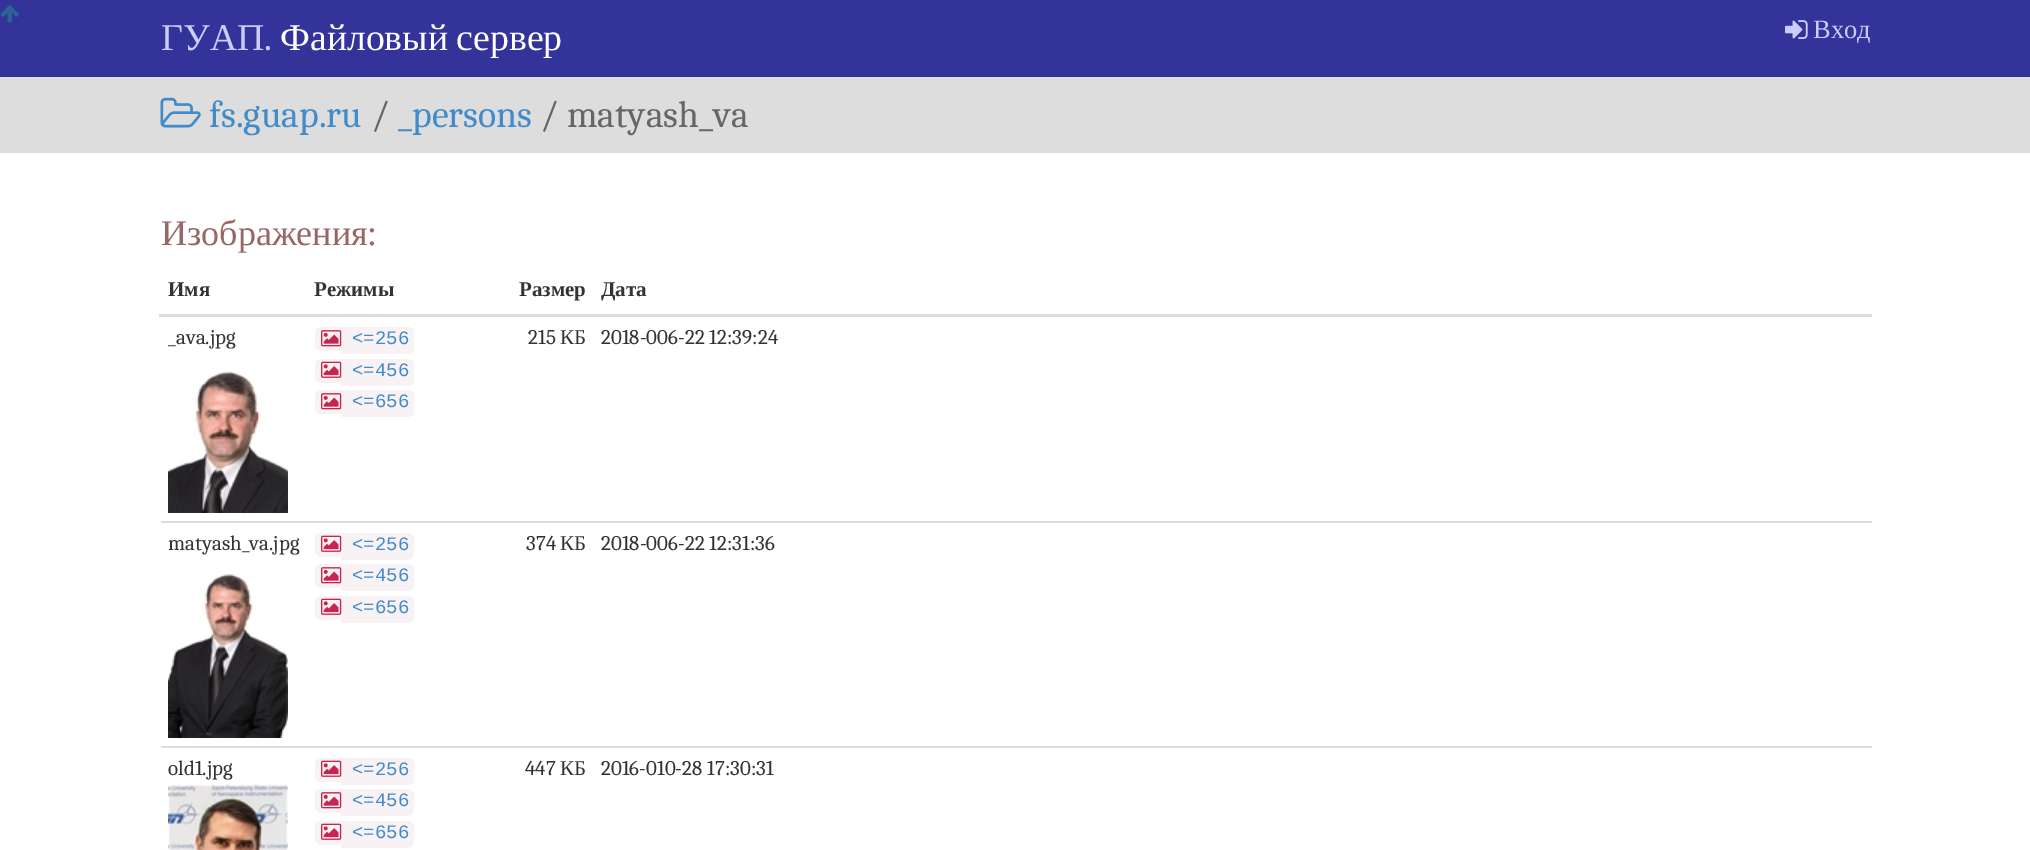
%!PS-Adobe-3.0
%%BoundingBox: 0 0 2030 850
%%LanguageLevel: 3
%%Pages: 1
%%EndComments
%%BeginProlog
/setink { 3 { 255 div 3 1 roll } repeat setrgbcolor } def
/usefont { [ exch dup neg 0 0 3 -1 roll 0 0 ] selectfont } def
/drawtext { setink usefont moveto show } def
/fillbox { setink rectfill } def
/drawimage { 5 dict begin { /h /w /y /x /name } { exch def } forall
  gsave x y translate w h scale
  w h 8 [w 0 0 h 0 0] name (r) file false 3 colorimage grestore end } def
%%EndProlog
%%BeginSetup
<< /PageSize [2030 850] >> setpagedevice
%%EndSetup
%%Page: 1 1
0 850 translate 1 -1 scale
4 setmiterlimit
0 0 2030 850 255 255 255 fillbox
0 0 2030 77 51 51 153 fillbox
(assets/img1.rgb) 0 5 19 18 drawimage
(ГУАП) 161 50 /LiberationSerif-Regular 37.75 204 204 255 drawtext
(.) 264 50 /Caladea-Regular 37.75 204 204 255 drawtext
/LiberationSerif-Regular 37.75 usefont
255 255 255 setink
280 50 moveto -1 0 32 (Файловый сервер) widthshow
(assets/img2.rgb) 1785 20 23 19 drawimage
(Вход) 1813 38 /LiberationSerif-Regular 26.5 204 204 255 drawtext
0 77 2030 76 221 221 221 fillbox
(assets/img3.rgb) 160 97 41 31 drawimage
(fs.guap.ru) 209 127 /Caladea-Regular 37.75 66 139 202 drawtext
(/) 371 127 /Caladea-Regular 37.75 102 102 102 drawtext
(_persons) 398 127 /Caladea-Regular 37.75 66 139 202 drawtext
(/ matyash_va) 540 127 /Caladea-Regular 37.75 102 102 102 drawtext
(Изображения:) 161 245 /LiberationSerif-Regular 36 153 102 102 drawtext
(Имя) 168 296 /LiberationSerif-Bold 21 51 51 51 drawtext
(Режимы) 314 296 /LiberationSerif-Bold 21 51 51 51 drawtext
(Размер) 519 296 /LiberationSerif-Bold 21 51 51 51 drawtext
159 314 1713 3 221 221 221 fillbox
(Дата) 601 296 /LiberationSerif-Bold 21 51 51 51 drawtext
(_ava.jpg) 168 344 /Caladea-Regular 21 51 51 51 drawtext
(assets/img4.rgb) 168 371 120 142 drawimage
249 242 244 setink
321 327 moveto 341 327 lineto 341 351 lineto 321 351 lineto 317.5 351 315 348.5 315 345 curveto 315 333 lineto 315 329.5 317.5 327 321 327 curveto closepath fill
341 327 12 27 249 242 244 fillbox
353 327 moveto 408 327 lineto 411.5 327 414 329.5 414 333 curveto 414 348 lineto 414 351.5 411.5 354 408 354 curveto 353 354 lineto closepath fill
(assets/img5.rgb) 321 330 21 17 drawimage
(<=256) 352 344 /LiberationMono-Regular 19 66 139 202 drawtext
249 242 244 setink
321 359 moveto 341 359 lineto 341 383 lineto 321 383 lineto 317.5 383 315 380.5 315 377 curveto 315 365 lineto 315 361.5 317.5 359 321 359 curveto closepath fill
341 359 12 27 249 242 244 fillbox
353 359 moveto 408 359 lineto 411.5 359 414 361.5 414 365 curveto 414 380 lineto 414 383.5 411.5 386 408 386 curveto 353 386 lineto closepath fill
(assets/img6.rgb) 321 361 21 17 drawimage
(<=456) 352 376 /LiberationMono-Regular 19 66 139 202 drawtext
249 242 244 setink
321 390 moveto 341 390 lineto 341 414 lineto 321 414 lineto 317.5 414 315 411.5 315 408 curveto 315 396 lineto 315 392.5 317.5 390 321 390 curveto closepath fill
341 390 12 27 249 242 244 fillbox
353 390 moveto 408 390 lineto 411.5 390 414 392.5 414 396 curveto 414 411 lineto 414 414.5 411.5 417 408 417 curveto 353 417 lineto closepath fill
(assets/img5.rgb) 321 393 21 17 drawimage
(<=656) 352 407 /LiberationMono-Regular 19 66 139 202 drawtext
(215) 528 344 /Caladea-Regular 21 51 51 51 drawtext
(КБ) 560 344 /LiberationSerif-Regular 21 51 51 51 drawtext
(2018-006-22 12:39:24) 601 344 /Caladea-Regular 21 51 51 51 drawtext
(matyash_va.jpg) 168 550 /Caladea-Regular 21 51 51 51 drawtext
(assets/img7.rgb) 168 574 120 164 drawimage
249 242 244 setink
321 533 moveto 341 533 lineto 341 557 lineto 321 557 lineto 317.5 557 315 554.5 315 551 curveto 315 539 lineto 315 535.5 317.5 533 321 533 curveto closepath fill
341 533 12 27 249 242 244 fillbox
353 533 moveto 408 533 lineto 411.5 533 414 535.5 414 539 curveto 414 554 lineto 414 557.5 411.5 560 408 560 curveto 353 560 lineto closepath fill
(assets/img6.rgb) 321 535 21 17 drawimage
(<=256) 352 550 /LiberationMono-Regular 19 66 139 202 drawtext
249 242 244 setink
321 564 moveto 341 564 lineto 341 588 lineto 321 588 lineto 317.5 588 315 585.5 315 582 curveto 315 570 lineto 315 566.5 317.5 564 321 564 curveto closepath fill
341 564 12 27 249 242 244 fillbox
353 564 moveto 408 564 lineto 411.5 564 414 566.5 414 570 curveto 414 585 lineto 414 588.5 411.5 591 408 591 curveto 353 591 lineto closepath fill
(assets/img5.rgb) 321 567 21 17 drawimage
(<=456) 352 581 /LiberationMono-Regular 19 66 139 202 drawtext
249 242 244 setink
321 596 moveto 341 596 lineto 341 620 lineto 321 620 lineto 317.5 620 315 617.5 315 614 curveto 315 602 lineto 315 598.5 317.5 596 321 596 curveto closepath fill
341 596 12 27 249 242 244 fillbox
353 596 moveto 408 596 lineto 411.5 596 414 598.5 414 602 curveto 414 617 lineto 414 620.5 411.5 623 408 623 curveto 353 623 lineto closepath fill
(assets/img6.rgb) 321 598 21 17 drawimage
(<=656) 352 613 /LiberationMono-Regular 19 66 139 202 drawtext
(374) 526 550 /Caladea-Regular 21 51 51 51 drawtext
(КБ) 560 550 /LiberationSerif-Regular 21 51 51 51 drawtext
161 521 1711 2 221 221 221 fillbox
(2018-006-22 12:31:36) 601 550 /Caladea-Regular 21 51 51 51 drawtext
(old1.jpg) 168 775 /Caladea-Regular 21 51 51 51 drawtext
(assets/img8.rgb) 168 784 120 66 drawimage
249 242 244 setink
321 758 moveto 341 758 lineto 341 782 lineto 321 782 lineto 317.5 782 315 779.5 315 776 curveto 315 764 lineto 315 760.5 317.5 758 321 758 curveto closepath fill
341 758 12 27 249 242 244 fillbox
353 758 moveto 408 758 lineto 411.5 758 414 760.5 414 764 curveto 414 779 lineto 414 782.5 411.5 785 408 785 curveto 353 785 lineto closepath fill
(assets/img6.rgb) 321 760 21 17 drawimage
(<=256) 352 775 /LiberationMono-Regular 19 66 139 202 drawtext
249 242 244 setink
321 789 moveto 341 789 lineto 341 813 lineto 321 813 lineto 317.5 813 315 810.5 315 807 curveto 315 795 lineto 315 791.5 317.5 789 321 789 curveto closepath fill
341 789 12 27 249 242 244 fillbox
353 789 moveto 408 789 lineto 411.5 789 414 791.5 414 795 curveto 414 810 lineto 414 813.5 411.5 816 408 816 curveto 353 816 lineto closepath fill
(assets/img5.rgb) 321 792 21 17 drawimage
(<=456) 352 806 /LiberationMono-Regular 19 66 139 202 drawtext
249 242 244 setink
321 821 moveto 341 821 lineto 341 845 lineto 321 845 lineto 317.5 845 315 842.5 315 839 curveto 315 827 lineto 315 823.5 317.5 821 321 821 curveto closepath fill
341 821 12 27 249 242 244 fillbox
353 821 moveto 408 821 lineto 411.5 821 414 823.5 414 827 curveto 414 842 lineto 414 845.5 411.5 848 408 848 curveto 353 848 lineto closepath fill
(assets/img6.rgb) 321 823 21 17 drawimage
(<=656) 352 838 /LiberationMono-Regular 19 66 139 202 drawtext
(447) 525 775 /Caladea-Regular 21 51 51 51 drawtext
(КБ) 560 775 /LiberationSerif-Regular 21 51 51 51 drawtext
161 746 1711 2 221 221 221 fillbox
(2016-010-28 17:30:31) 601 775 /Caladea-Regular 21 51 51 51 drawtext
showpage
%%EOF
